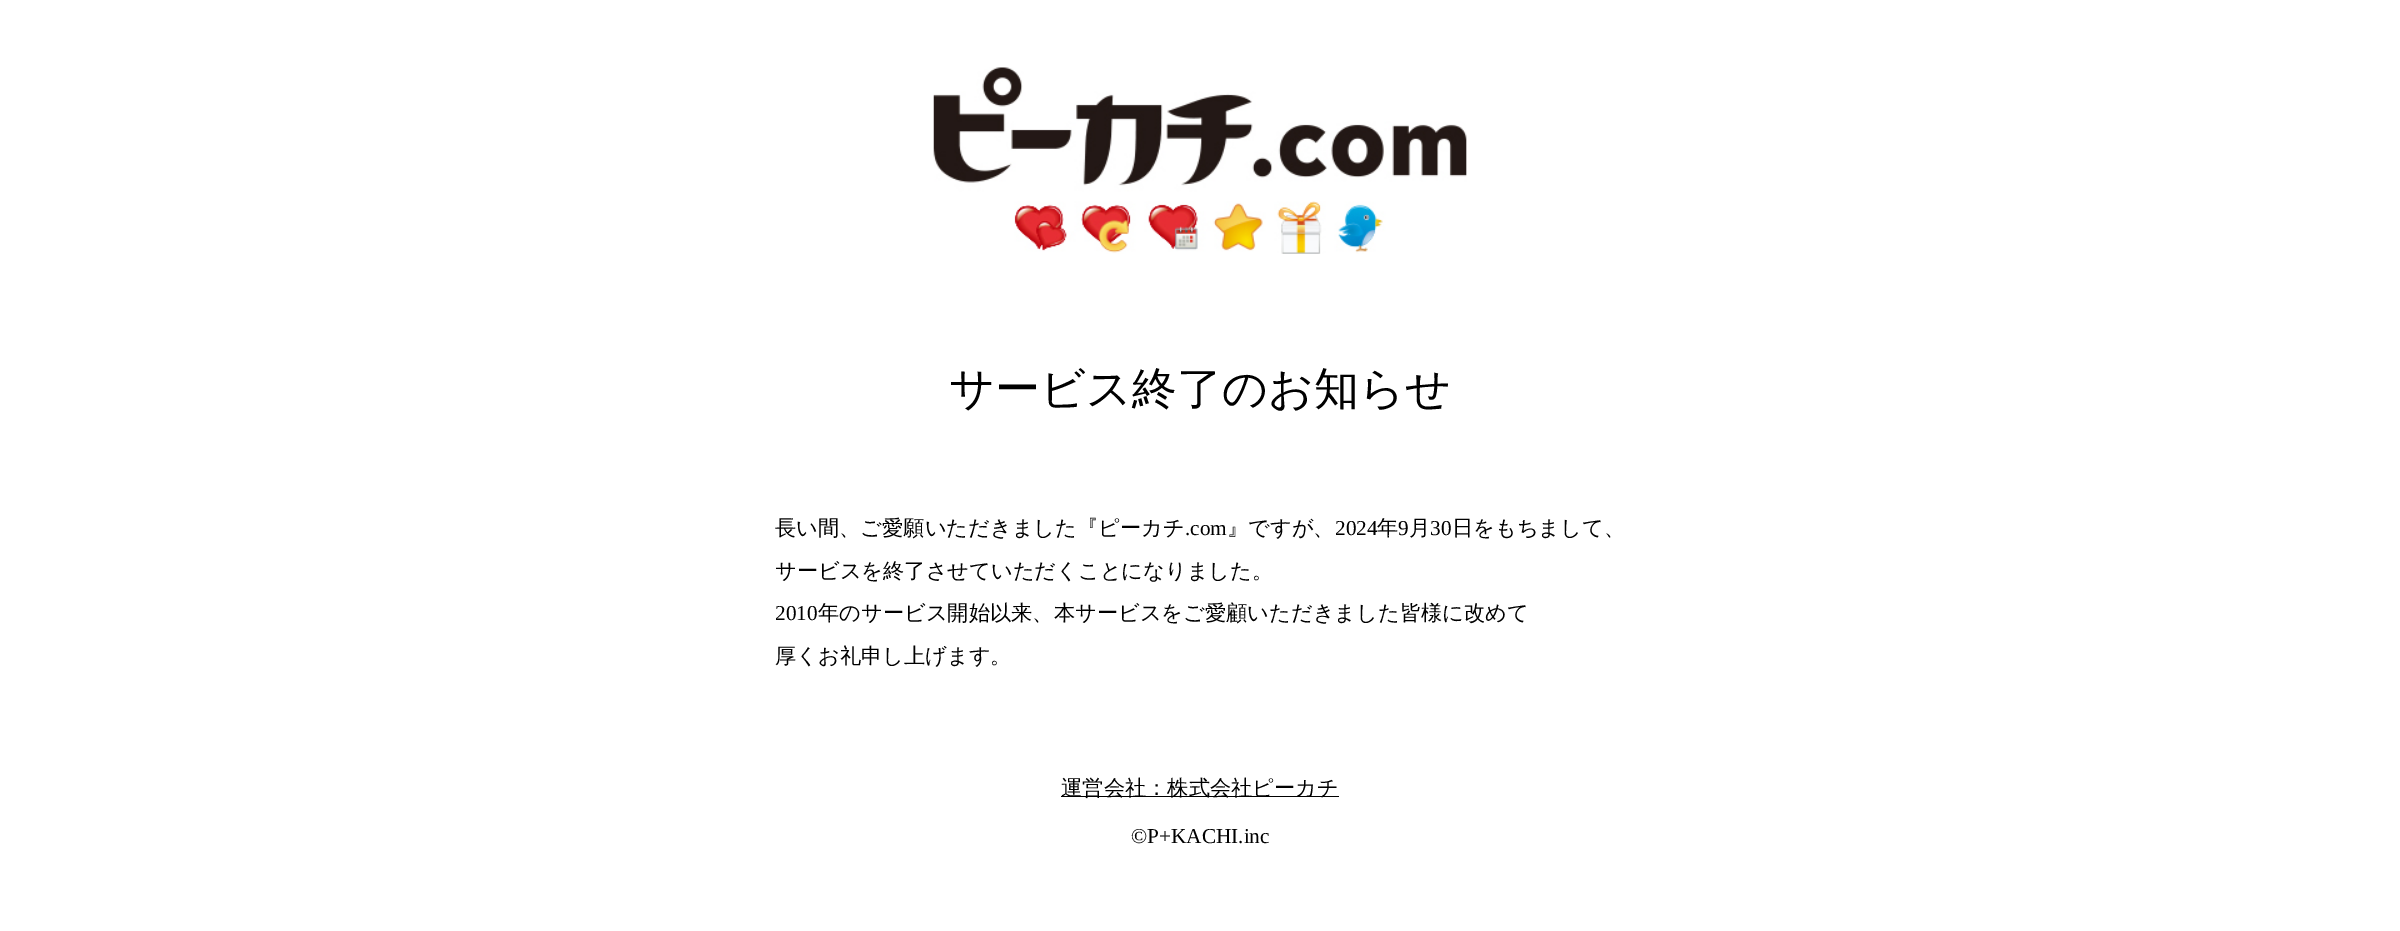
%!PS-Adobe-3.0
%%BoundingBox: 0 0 2400 931
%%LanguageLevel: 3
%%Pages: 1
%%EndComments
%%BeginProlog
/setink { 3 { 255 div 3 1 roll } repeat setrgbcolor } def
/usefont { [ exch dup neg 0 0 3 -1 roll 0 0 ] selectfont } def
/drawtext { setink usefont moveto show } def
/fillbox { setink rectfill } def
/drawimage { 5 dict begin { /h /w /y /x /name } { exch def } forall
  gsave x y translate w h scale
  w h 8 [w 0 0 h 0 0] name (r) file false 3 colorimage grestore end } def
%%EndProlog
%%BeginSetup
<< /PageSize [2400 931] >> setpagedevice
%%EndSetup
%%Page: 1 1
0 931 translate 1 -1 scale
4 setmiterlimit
0 0 2400 931 255 255 255 fillbox
(assets/img1.rgb) 933 67 534 187 drawimage
(サービス終了のお知らせ) 949 404 /WenQuanYiZenHei-Medium 45 0 0 0 drawtext
(長い間、ご愛願いただきました『ピーカチ) 775 535 /WenQuanYiZenHei-Medium 21.25 0 0 0 drawtext
(.com) 1185 535 /LiberationSerif-Regular 21.25 0 0 0 drawtext
(』ですが、) 1227 535 /WenQuanYiZenHei-Medium 21.25 0 0 0 drawtext
(2024) 1335 535 /LiberationSerif-Regular 21.25 0 0 0 drawtext
(年) 1377 535 /WenQuanYiZenHei-Medium 21.25 0 0 0 drawtext
(9) 1398 535 /LiberationSerif-Regular 21.25 0 0 0 drawtext
(月) 1409 535 /WenQuanYiZenHei-Medium 21.25 0 0 0 drawtext
(30) 1430 535 /LiberationSerif-Regular 21.25 0 0 0 drawtext
(日をもちまして、) 1452 535 /WenQuanYiZenHei-Medium 21.25 0 0 0 drawtext
(サービスを終了させていただくことになりました。) 775 578 /WenQuanYiZenHei-Medium 21.25 0 0 0 drawtext
(2010) 775 620 /LiberationSerif-Regular 21.25 0 0 0 drawtext
(年のサービス開始以来、本サービスをご愛顧いただきました皆様に改めて) 818 620 /WenQuanYiZenHei-Medium 21.25 0 0 0 drawtext
(厚くお礼申し上げます。) 775 663 /WenQuanYiZenHei-Medium 21.25 0 0 0 drawtext
1061 796 278 1 0 0 0 fillbox
(運営会社：株式会社ピーカチ) 1061 795 /WenQuanYiZenHei-Medium 21.25 0 0 0 drawtext
(©P+KACHI.inc) 1131 843 /LiberationSerif-Regular 21.25 0 0 0 drawtext
showpage
%%EOF
